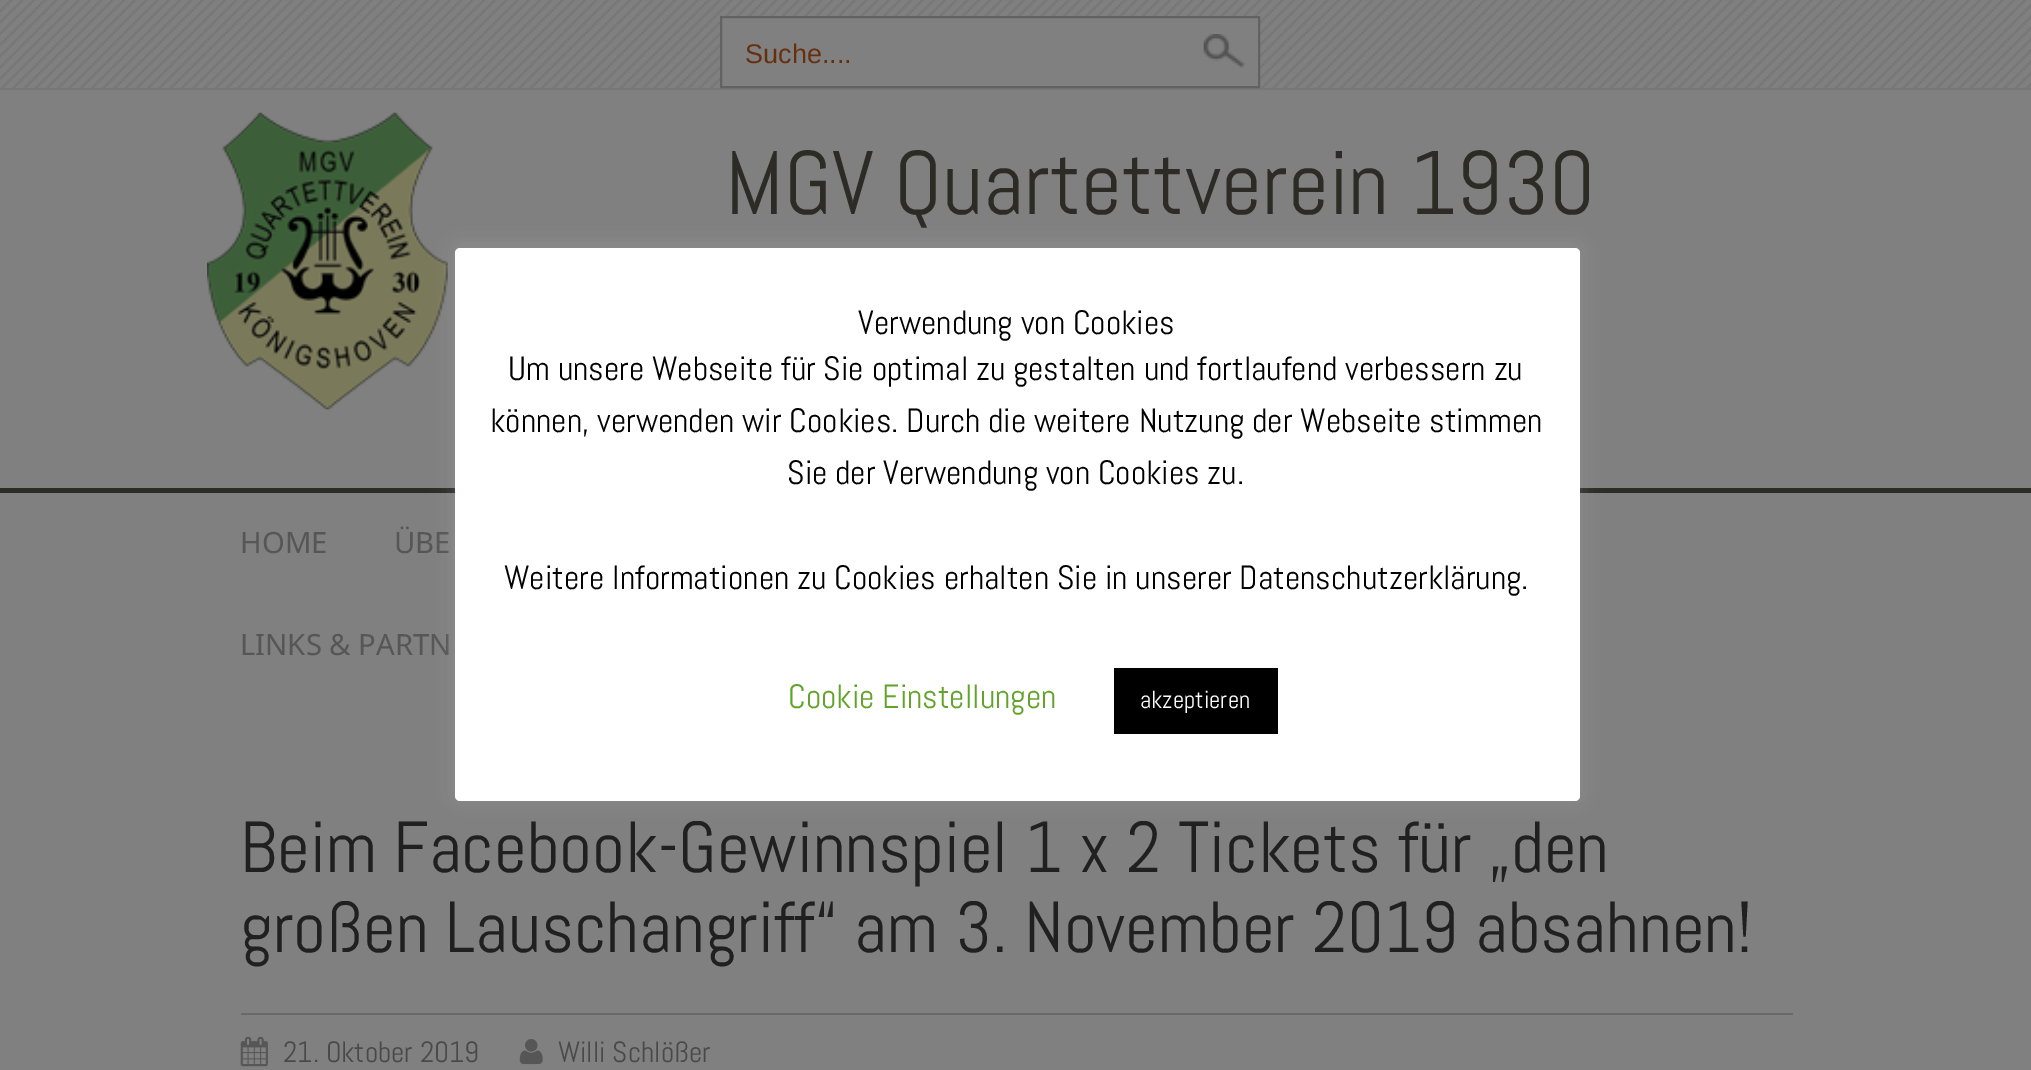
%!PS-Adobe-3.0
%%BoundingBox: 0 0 2031 1070
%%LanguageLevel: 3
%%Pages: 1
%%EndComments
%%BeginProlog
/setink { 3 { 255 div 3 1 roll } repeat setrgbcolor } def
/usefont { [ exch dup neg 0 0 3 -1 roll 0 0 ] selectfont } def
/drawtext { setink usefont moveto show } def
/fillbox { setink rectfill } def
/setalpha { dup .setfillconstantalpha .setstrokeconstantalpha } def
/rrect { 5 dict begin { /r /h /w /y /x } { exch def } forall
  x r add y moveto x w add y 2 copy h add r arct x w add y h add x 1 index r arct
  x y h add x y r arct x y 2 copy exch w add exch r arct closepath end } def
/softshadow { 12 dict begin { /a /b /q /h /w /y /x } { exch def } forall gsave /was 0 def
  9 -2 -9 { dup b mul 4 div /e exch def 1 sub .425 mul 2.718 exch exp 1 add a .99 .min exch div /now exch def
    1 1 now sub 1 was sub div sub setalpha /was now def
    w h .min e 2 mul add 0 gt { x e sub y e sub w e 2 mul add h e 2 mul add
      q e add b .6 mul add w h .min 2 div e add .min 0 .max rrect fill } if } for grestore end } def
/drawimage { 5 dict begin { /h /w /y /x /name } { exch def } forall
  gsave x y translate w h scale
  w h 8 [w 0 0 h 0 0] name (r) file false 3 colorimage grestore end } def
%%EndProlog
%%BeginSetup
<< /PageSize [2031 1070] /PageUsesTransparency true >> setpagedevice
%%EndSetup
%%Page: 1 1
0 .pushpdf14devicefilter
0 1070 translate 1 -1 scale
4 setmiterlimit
0 0 2031 1070 128 128 128 fillbox
(assets/img1.rgb) 0 0 2031 88 drawimage
0 88 2031 2 119 119 119 fillbox
128 128 128 setink
721 17 moveto 1259 17 lineto 1259 87 lineto 721 87 lineto closepath gsave fill grestore
98 98 98 setink
2 setlinewidth
stroke
(Suche....) 745 63 /LiberationSans-Regular 27 102 47 14 drawtext
(assets/img2.rgb) 1203 34 42 34 drawimage
(assets/img3.rgb) 207 112 241 298 drawimage
(MGV Quartettverein 1930) 725 214 /Abel-Regular 90 44 43 37 drawtext
0 488 2031 5 44 43 37 fillbox
(HOME) 240 553 /NotoSans-Regular 29.25 86 86 86 drawtext
(ÜBE) 394 553 /NotoSans-Regular 29.25 86 86 86 drawtext
(LINKS & PARTN) 240 655 /NotoSans-Regular 29.25 86 86 86 drawtext
(Beim Facebook-Gewinnspiel 1 x 2 Tickets für „den) 240 872 /Abel-Regular 72 32 32 32 drawtext
(großen Lauschangriff“ am 3. November 2019 absahnen!) 240 952 /Abel-Regular 72 32 32 32 drawtext
241 1013 1552 2 105 105 105 fillbox
(assets/img4.rgb) 240 1036 28 31 drawimage
(21. Oktober 2019) 283 1062 /Abel-Regular 29.25 73 73 73 drawtext
(assets/img5.rgb) 519 1039 24 26 drawimage
(Willi Schlößer) 558 1062 /Abel-Regular 29.25 73 73 73 drawtext
172 171 171 setink
455 245 1125 554 5 11 0.3 softshadow
255 255 255 setink
455 248 1125 553 5 rrect fill
(Verwendung von Cookies) 858 334 /Abel-Regular 33.75 0 0 0 drawtext
(Um unsere Webseite für Sie optimal zu gestalten und fortlaufend verbessern zu) 508 380 /Abel-Regular 33.75 0 0 0 drawtext
(können, verwenden wir Cookies. Durch die weitere Nutzung der Webseite stimmen) 490 432 /Abel-Regular 33.75 0 0 0 drawtext
(Sie der Verwendung von Cookies zu.) 787 484 /Abel-Regular 33.75 0 0 0 drawtext
(Weitere Informationen zu Cookies erhalten Sie in unserer Datenschutzerklärung.) 504 589 /Abel-Regular 33.75 0 0 0 drawtext
(Cookie Einstellungen) 788 708 /Abel-Regular 33.75 98 163 41 drawtext
1114 668 164 66 0 0 0 fillbox
(akzeptieren) 1140 708 /Abel-Regular 24.75 255 255 255 drawtext
.poppdf14devicefilter showpage
%%EOF
